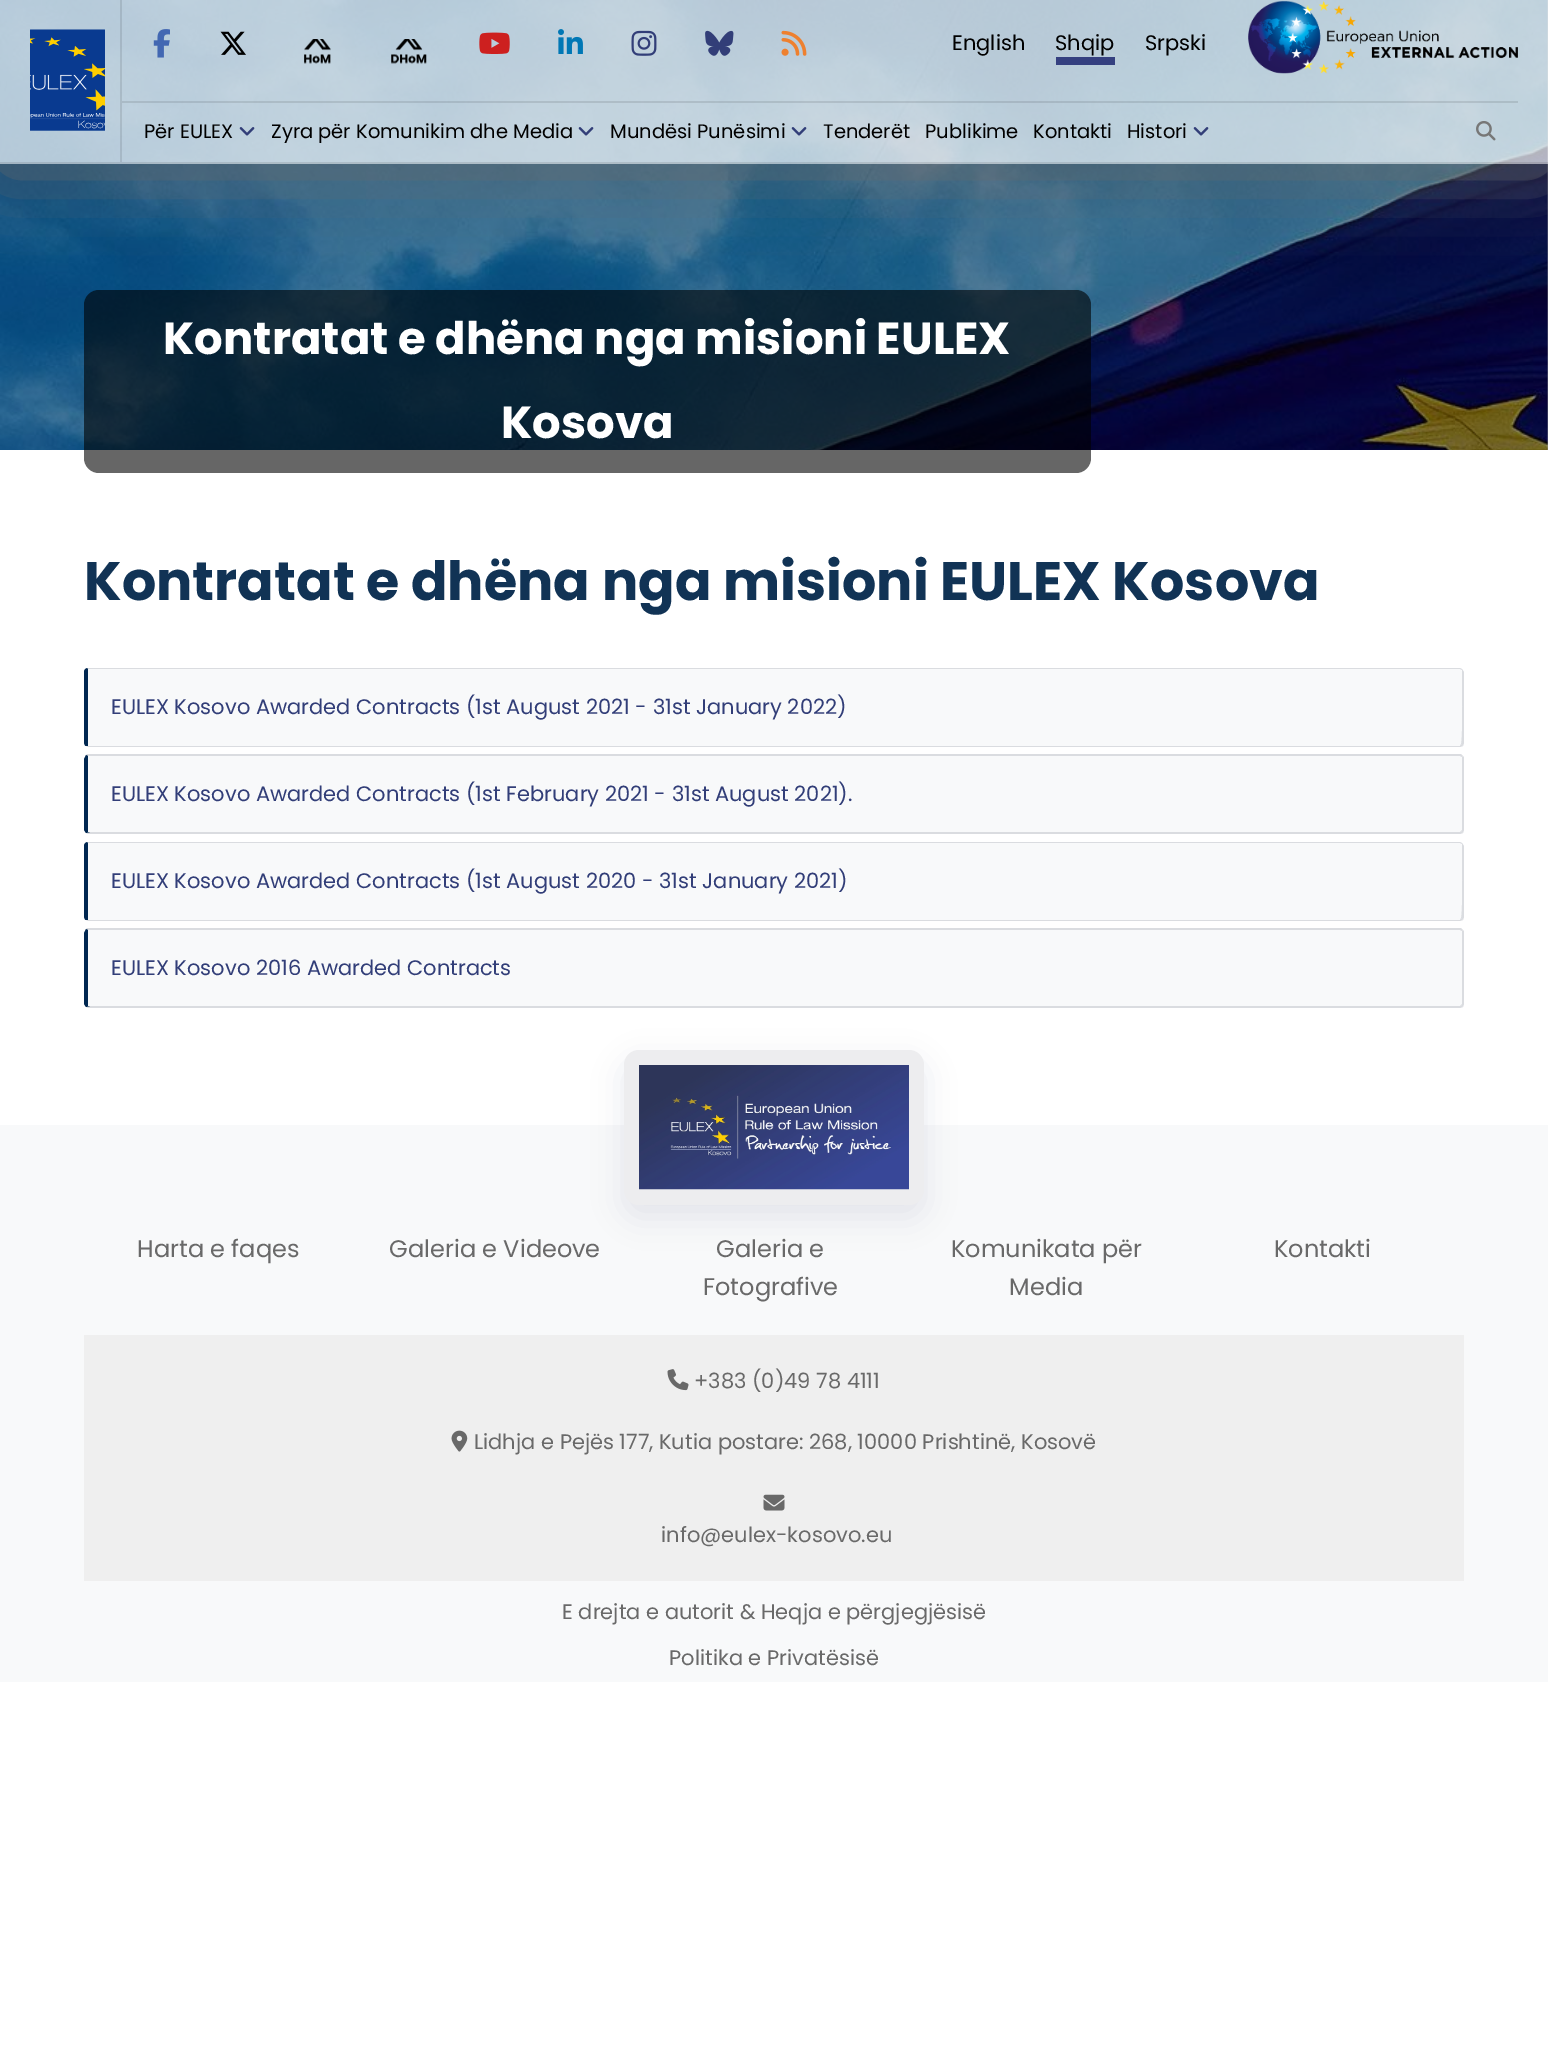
%!PS-Adobe-3.0
%%BoundingBox: 0 0 1548 2059
%%LanguageLevel: 3
%%Pages: 1
%%EndComments
%%BeginProlog
/setink { 3 { 255 div 3 1 roll } repeat setrgbcolor } def
/usefont { [ exch dup neg 0 0 3 -1 roll 0 0 ] selectfont } def
/drawtext { setink usefont moveto show } def
/fillbox { setink rectfill } def
/setalpha { dup .setfillconstantalpha .setstrokeconstantalpha } def
/rrect { 5 dict begin { /r /h /w /y /x } { exch def } forall
  x r add y moveto x w add y 2 copy h add r arct x w add y h add x 1 index r arct
  x y h add x y r arct x y 2 copy exch w add exch r arct closepath end } def
/softshadow { 12 dict begin { /a /b /q /h /w /y /x } { exch def } forall gsave /was 0 def
  9 -2 -9 { dup b mul 4 div /e exch def 1 sub .425 mul 2.718 exch exp 1 add a .99 .min exch div /now exch def
    1 1 now sub 1 was sub div sub setalpha /was now def
    w h .min e 2 mul add 0 gt { x e sub y e sub w e 2 mul add h e 2 mul add
      q e add b .6 mul add w h .min 2 div e add .min 0 .max rrect fill } if } for grestore end } def
/drawimage { 5 dict begin { /h /w /y /x /name } { exch def } forall
  gsave x y translate w h scale
  w h 8 [w 0 0 h 0 0] name (r) file false 3 colorimage grestore end } def
%%EndProlog
%%BeginSetup
<< /PageSize [1548 2059] /PageUsesTransparency true >> setpagedevice
%%EndSetup
%%Page: 1 1
0 .pushpdf14devicefilter
0 2059 translate 1 -1 scale
4 setmiterlimit
0 0 1548 2059 255 255 255 fillbox
1547 0 1 450 153 153 153 fillbox
(assets/img17.rgb) 0 0 1548 450 drawimage
gsave
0 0 moveto 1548 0 lineto 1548 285 lineto 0 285 lineto closepath 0 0 moveto 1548 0 lineto 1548 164 lineto 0 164 lineto closepath eoclip newpath
105 105 105 setink
0 8 1548 163 0 37.5 1 softshadow
grestore
0.7 setalpha
0 0 1548 164 255 255 255 fillbox
0.1 setalpha
0 162 1548 2 0 0 0 fillbox
120 0 2 162 0 0 0 fillbox
1 setalpha
(assets/img1.rgb) 30 29 75 102 drawimage
0.1 setalpha
122 101 1396 2 0 0 0 fillbox
1 setalpha
(assets/img2.rgb) 153 29 17 29 drawimage
(assets/img3.rgb) 220 31 26 24 drawimage
(assets/img4.rgb) 304 39 27 25 drawimage
(assets/img5.rgb) 391 39 36 25 drawimage
(assets/img6.rgb) 479 32 31 22 drawimage
(assets/img7.rgb) 558 29 25 25 drawimage
(assets/img8.rgb) 631 30 26 26 drawimage
(assets/img9.rgb) 705 30 29 26 drawimage
(assets/img10.rgb) 781 30 26 26 drawimage
(English) 952 50 /Poppins-Regular 21 0 0 0 drawtext
(Shqip) 1055 50 /Poppins-Regular 21 0 0 0 drawtext
1056 57 59 8 53 64 128 fillbox
(Srpski) 1145 50 /Poppins-Regular 21 0 0 0 drawtext
(assets/img11.rgb) 1248 0 270 74 drawimage
(Për EULEX) 144 138 /Poppins-Regular 19.5 0 0 0 drawtext
(assets/img12.rgb) 239 127 16 9 drawimage
(Zyra për Komunikim dhe Media) 271 138 /Poppins-Regular 19.5 0 0 0 drawtext
(assets/img13.rgb) 578 127 16 9 drawimage
(Mundësi Punësimi) 610 138 /Poppins-Regular 19.5 0 0 0 drawtext
(assets/img14.rgb) 791 127 16 9 drawimage
(Tenderët) 823 138 /Poppins-Regular 19.5 0 0 0 drawtext
(Publikime) 925 138 /Poppins-Regular 19.5 0 0 0 drawtext
(Kontakti) 1033 138 /Poppins-Regular 19.5 0 0 0 drawtext
(Histori) 1127 138 /Poppins-Regular 19.5 0 0 0 drawtext
(assets/img15.rgb) 1193 127 16 9 drawimage
(assets/img16.rgb) 1476 121 20 20 drawimage
0.6 setalpha
84 290 1007 183 15 rrect fill
1 setalpha
(Kontratat e dhëna nga misioni EULEX) 163 354 /Poppins-Bold 45 255 255 255 drawtext
(Kosova) 501 438 /Poppins-Bold 45 255 255 255 drawtext
(Kontratat e dhëna nga misioni EULEX Kosova) 84 600 /Poppins-Bold 54 17 51 85 drawtext
248 249 250 setink
88 669 moveto 1460 669 lineto 1461 669 1462 670 1462 672 curveto 1462 742 lineto 1462 744 1461 746 1460 746 curveto 88 746 lineto closepath fill
218 220 224 setink
88 668 moveto 87 668 lineto 88 669 lineto 1460 669 lineto 1462 670 lineto 1462 669 lineto 1460 668 lineto closepath fill
1462 669 moveto 1464 672 lineto 1464 743 lineto 1463 746 lineto 1461 744 lineto 1463 741 1462 671 1462 670 curveto closepath fill
88 747 moveto 1460 747 lineto 1463 746 lineto 1461 744 lineto 1460 746 lineto 88 746 lineto 86 746 lineto closepath fill
0 39 81 setink
88 669 moveto 87 668 lineto 85 669 84 670 84 672 curveto 84 742 lineto 84 744 85 746 86 746 curveto 88 746 lineto closepath fill
(EULEX Kosovo Awarded Contracts \(1st August 2021 - 31st January 2022\)) 111 714 /Poppins-Regular 21 50 62 120 drawtext
248 249 250 setink
88 756 moveto 1460 756 lineto 1461 756 1462 757 1462 759 curveto 1462 830 lineto 1462 831 1461 832 1460 832 curveto 88 832 lineto closepath fill
218 220 224 setink
86 755 moveto 87 754 lineto 1461 754 lineto 1463 756 lineto 1462 757 lineto 1460 756 lineto 88 756 lineto closepath fill
1464 830 moveto 1464 759 lineto 1464 758 1464 757 1463 756 curveto 1462 757 lineto 1462 759 lineto 1462 830 lineto 1461 831 lineto 1463 833 lineto closepath fill
88 834 moveto 1460 834 lineto 1463 833 lineto 1461 831 lineto 1460 832 lineto 90 832 lineto 86 833 lineto closepath fill
0 39 81 setink
88 756 moveto 86 755 lineto 84 759 lineto 84 830 lineto 86 833 lineto 90 832 lineto 88 832 lineto closepath fill
(EULEX Kosovo Awarded Contracts \(1st February 2021 - 31st August 2021\).) 111 801 /Poppins-Regular 21 50 62 120 drawtext
248 249 250 setink
88 843 moveto 1460 843 lineto 1461 843 1462 844 1462 846 curveto 1462 916 lineto 1462 918 1461 920 1460 920 curveto 88 920 lineto closepath fill
218 220 224 setink
88 842 moveto 87 842 lineto 88 843 lineto 1460 843 lineto 1462 844 lineto 1462 843 lineto 1460 842 lineto closepath fill
1462 843 moveto 1464 846 lineto 1464 917 lineto 1463 920 lineto 1461 918 lineto 1463 915 1462 845 1462 844 curveto closepath fill
88 921 moveto 1460 921 lineto 1463 920 lineto 1461 918 lineto 1460 920 lineto 88 920 lineto 86 920 lineto closepath fill
0 39 81 setink
88 843 moveto 87 842 lineto 85 843 84 844 84 846 curveto 84 916 lineto 84 918 85 920 86 920 curveto 88 920 lineto closepath fill
(EULEX Kosovo Awarded Contracts \(1st August 2020 - 31st January 2021\)) 111 888 /Poppins-Regular 21 50 62 120 drawtext
248 249 250 setink
88 930 moveto 1460 930 lineto 1461 930 1462 931 1462 933 curveto 1462 1004 lineto 1462 1005 1461 1006 1460 1006 curveto 88 1006 lineto closepath fill
218 220 224 setink
86 929 moveto 87 928 lineto 1461 928 lineto 1463 930 lineto 1462 931 lineto 1460 930 lineto 88 930 lineto closepath fill
1464 1004 moveto 1464 933 lineto 1464 932 1464 931 1463 930 curveto 1462 931 lineto 1462 933 lineto 1462 1004 lineto 1461 1005 lineto 1463 1007 lineto closepath fill
88 1008 moveto 1460 1008 lineto 1463 1007 lineto 1461 1005 lineto 1460 1006 lineto 90 1006 lineto 86 1007 lineto closepath fill
0 39 81 setink
88 930 moveto 86 929 lineto 84 933 lineto 84 1004 lineto 86 1007 lineto 90 1006 lineto 88 1006 lineto closepath fill
(EULEX Kosovo 2016 Awarded Contracts) 111 975 /Poppins-Regular 21 50 62 120 drawtext
0 1125 1548 557 248 249 250 fillbox
24 32 111 setink
624 1062 300 155 15 15 0.1 softshadow
237 237 239 setink
624 1050 300 155 15 rrect fill
(assets/img18.rgb) 639 1065 270 125 drawimage
(Harta e faqes) 137 1257 /Poppins-Regular 24 105 105 105 drawtext
(Galeria e Videove) 389 1257 /Poppins-Regular 24 105 105 105 drawtext
(Galeria e) 716 1257 /Poppins-Regular 24 105 105 105 drawtext
(Fotografive) 703 1295 /Poppins-Regular 24 105 105 105 drawtext
(Komunikata për) 951 1257 /Poppins-Regular 24 105 105 105 drawtext
(Media) 1009 1295 /Poppins-Regular 24 105 105 105 drawtext
(Kontakti) 1274 1257 /Poppins-Regular 24 105 105 105 drawtext
84 1335 1380 246 239 239 239 fillbox
(assets/img19.rgb) 667 1369 22 22 drawimage
(+383 \(0\)49 78 4111) 694 1388 /Poppins-Regular 21 105 105 105 drawtext
(assets/img20.rgb) 451 1430 17 22 drawimage
(Lidhja e Pejës 177, Kutia postare: 268, 10000 Prishtinë, Kosovë) 474 1449 /Poppins-Regular 21 105 105 105 drawtext
(assets/img21.rgb) 763 1494 22 17 drawimage
(info@eulex-kosovo.eu) 661 1542 /Poppins-Regular 21 105 105 105 drawtext
(E drejta e autorit & Heqja e përgjegjësisë) 562 1619 /Poppins-Regular 21 105 105 105 drawtext
(Politika e Privatësisë) 669 1665 /Poppins-Regular 21 105 105 105 drawtext
.poppdf14devicefilter showpage
%%EOF
